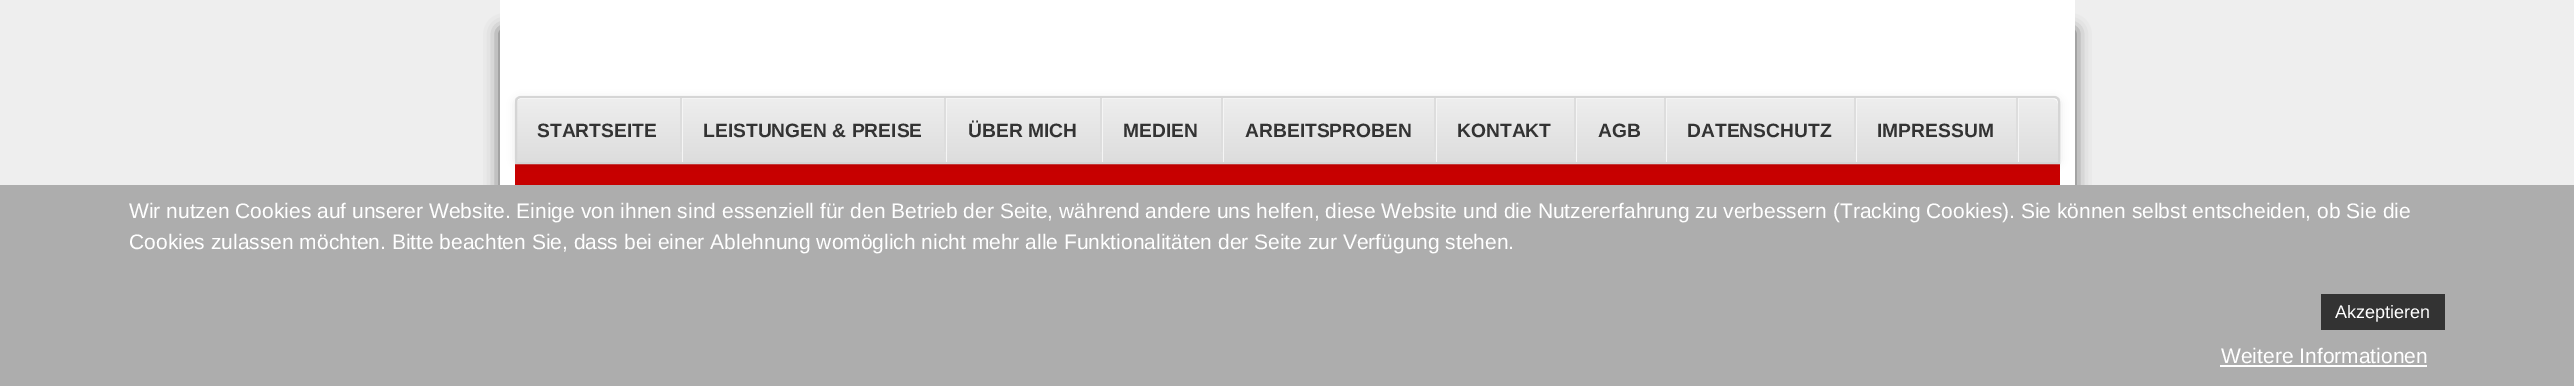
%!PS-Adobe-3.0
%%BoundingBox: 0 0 2574 386
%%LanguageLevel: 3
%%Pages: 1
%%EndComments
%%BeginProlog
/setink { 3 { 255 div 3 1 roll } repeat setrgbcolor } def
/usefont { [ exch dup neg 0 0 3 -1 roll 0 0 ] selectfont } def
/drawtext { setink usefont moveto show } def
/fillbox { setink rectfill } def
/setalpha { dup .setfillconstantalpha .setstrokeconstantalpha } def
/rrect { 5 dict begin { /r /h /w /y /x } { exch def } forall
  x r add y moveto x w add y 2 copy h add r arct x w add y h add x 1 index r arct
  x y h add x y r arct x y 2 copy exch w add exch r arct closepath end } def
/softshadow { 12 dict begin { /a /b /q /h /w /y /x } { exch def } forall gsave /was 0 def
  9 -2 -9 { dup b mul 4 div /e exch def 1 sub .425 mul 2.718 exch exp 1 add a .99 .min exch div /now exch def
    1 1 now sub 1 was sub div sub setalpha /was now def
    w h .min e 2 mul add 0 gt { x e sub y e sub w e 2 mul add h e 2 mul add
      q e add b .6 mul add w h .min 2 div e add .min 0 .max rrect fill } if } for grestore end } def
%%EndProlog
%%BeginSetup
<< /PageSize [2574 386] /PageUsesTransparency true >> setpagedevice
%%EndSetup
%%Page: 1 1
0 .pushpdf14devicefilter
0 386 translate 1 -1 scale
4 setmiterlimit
0 0 2574 386 238 238 238 fillbox
85 85 85 setink
500 30 1575 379 0 7.5 1 softshadow
500 0 1575 185 255 255 255 fillbox
gsave 515 164 moveto 2060 164 lineto 2060 185 lineto 515 185 lineto closepath clip newpath
<< /ShadingType 2 /ColorSpace /DeviceRGB /Coords [1287 150 1287 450] /Extend [true true] /Function << /FunctionType 2 /Domain [0 1] /C0 [0.8 0 0] /C1 [0.6 0 0] /N 1 >> >> shfill grestore
0 0 0 setink
515 98 1545 67 6 4 0.1 softshadow
gsave
521 96 moveto 2054 96 lineto 2057.5 96 2060 98.5 2060 102 curveto 2060 164 lineto 515 164 lineto 515 102 lineto 515 98.5 517.5 96 521 96 curveto closepath clip newpath
gsave 515 98 moveto 2060 98 lineto 2060 162 lineto 515 162 lineto closepath clip newpath
<< /ShadingType 2 /ColorSpace /DeviceRGB /Coords [1287 97 1287 162] /Extend [true true] /Function << /FunctionType 2 /Domain [0 1] /C0 [0.933 0.933 0.933] /C1 [0.867 0.867 0.867] /N 1 >> >> shfill grestore
grestore
255 255 255 setink
520 99 moveto 2054 99 lineto 2056 99 2058 101 2058 104 curveto 2058 103 lineto 2058 100 2056 98 2053 98 curveto 521 98 lineto 518 98 516 100 516 103 curveto 516 104 lineto 516 101 518 99 520 99 curveto closepath fill
213 213 213 setink
2 setlinewidth
521 97 moveto 2054 97 lineto 2057 97 2059 99 2059 102 curveto 2059 163 lineto 516 163 lineto 516 102 lineto 516 99 518 97 521 97 curveto closepath stroke
682 98 1 64 245 245 245 fillbox
680 98 2 54 221 221 221 fillbox
(STARTSEITE) 537 137 /LiberationSans-Bold 19.25 51 51 51 drawtext
946 98 1 64 245 245 245 fillbox
944 98 2 54 221 221 221 fillbox
(LEISTUNGEN & PREISE) 703 137 /LiberationSans-Bold 19.25 51 51 51 drawtext
1102 98 1 64 245 245 245 fillbox
1100 98 2 54 221 221 221 fillbox
(ÜBER MICH) 968 137 /LiberationSans-Bold 19.25 51 51 51 drawtext
1223 98 1 64 245 245 245 fillbox
1221 98 2 54 221 221 221 fillbox
(MEDIEN) 1123 137 /LiberationSans-Bold 19.25 51 51 51 drawtext
1436 98 1 64 245 245 245 fillbox
1434 98 2 54 221 221 221 fillbox
(ARBEITSPROBEN) 1245 137 /LiberationSans-Bold 19.25 51 51 51 drawtext
1576 98 1 64 245 245 245 fillbox
1574 98 2 54 221 221 221 fillbox
(KONTAKT) 1457 137 /LiberationSans-Bold 19.25 51 51 51 drawtext
1666 98 1 64 245 245 245 fillbox
1664 98 2 54 221 221 221 fillbox
(AGB) 1598 137 /LiberationSans-Bold 19.25 51 51 51 drawtext
1856 98 1 64 245 245 245 fillbox
1854 98 2 54 221 221 221 fillbox
(DATENSCHUTZ) 1687 137 /LiberationSans-Bold 19.25 51 51 51 drawtext
2018 98 1 64 245 245 245 fillbox
2016 98 2 54 221 221 221 fillbox
(IMPRESSUM) 1877 137 /LiberationSans-Bold 19.25 51 51 51 drawtext
0 185 2574 201 173 173 173 fillbox
(Wir nutzen Cookies auf unserer Website. Einige von ihnen sind essenziell für den Betrieb der Seite, während andere uns helfen, diese Website und die Nutzererfahrung zu verbessern \(Tracking Cookies\). Sie können selbst entscheiden, ob Sie die) 129 218 /LiberationSans-Regular 21 255 255 255 drawtext
(Cookies zulassen möchten. Bitte beachten Sie, dass bei einer Ablehnung womöglich nicht mehr alle Funktionalitäten der Seite zur Verfügung stehen.) 129 249 /LiberationSans-Regular 21 255 255 255 drawtext
2321 294 124 36 51 51 51 fillbox
(Akzeptieren) 2335 318 /LiberationSans-Regular 18 255 255 255 drawtext
(Weitere Informationen) 2221 363 /LiberationSans-Regular 21 255 255 255 drawtext
2220 365 207 2 255 255 255 fillbox
.poppdf14devicefilter showpage
%%EOF
